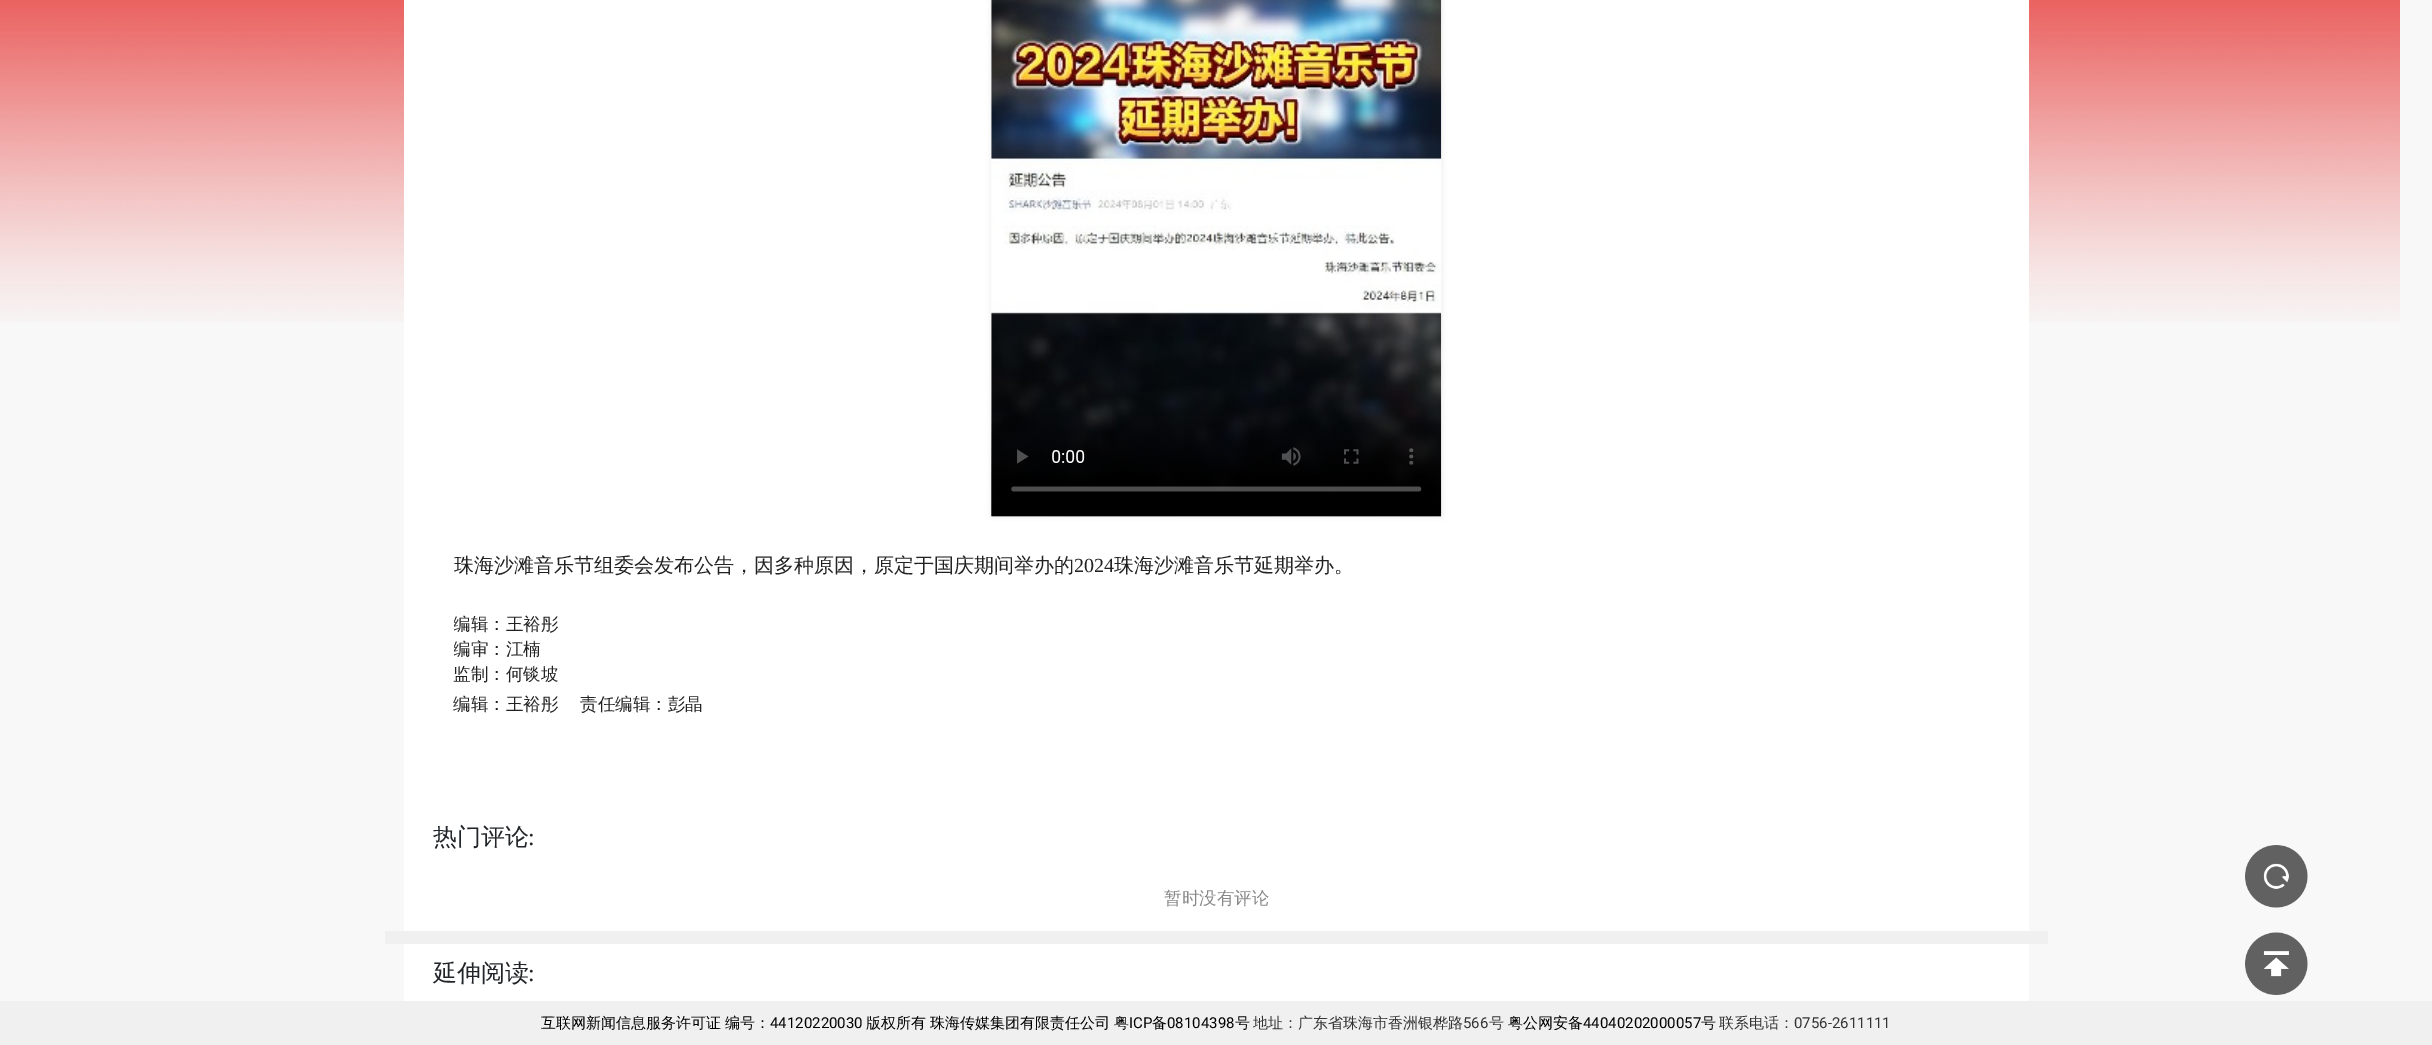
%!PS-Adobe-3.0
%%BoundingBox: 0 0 2432 1045
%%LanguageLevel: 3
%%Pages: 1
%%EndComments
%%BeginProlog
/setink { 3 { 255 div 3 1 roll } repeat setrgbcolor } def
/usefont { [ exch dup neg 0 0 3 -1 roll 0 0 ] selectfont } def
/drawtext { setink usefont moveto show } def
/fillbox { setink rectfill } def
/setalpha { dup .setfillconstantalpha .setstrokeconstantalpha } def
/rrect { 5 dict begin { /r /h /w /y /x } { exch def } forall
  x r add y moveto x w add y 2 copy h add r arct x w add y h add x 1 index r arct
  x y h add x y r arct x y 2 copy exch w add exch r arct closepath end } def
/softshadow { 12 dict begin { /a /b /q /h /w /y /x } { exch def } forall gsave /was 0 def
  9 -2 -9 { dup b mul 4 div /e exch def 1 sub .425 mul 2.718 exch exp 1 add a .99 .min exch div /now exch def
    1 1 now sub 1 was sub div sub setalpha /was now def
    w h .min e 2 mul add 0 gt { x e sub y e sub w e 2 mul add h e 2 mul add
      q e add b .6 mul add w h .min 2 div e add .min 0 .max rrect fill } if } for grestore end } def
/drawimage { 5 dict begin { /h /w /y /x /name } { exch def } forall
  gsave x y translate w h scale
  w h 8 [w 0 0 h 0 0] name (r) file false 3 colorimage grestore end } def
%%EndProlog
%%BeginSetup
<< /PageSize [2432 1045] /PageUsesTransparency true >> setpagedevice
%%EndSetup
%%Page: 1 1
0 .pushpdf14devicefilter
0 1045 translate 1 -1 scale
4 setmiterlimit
0 0 2432 1045 248 248 248 fillbox
(assets/img1.rgb) 0 0 2400 322 drawimage
404 0 1625 1001 255 255 255 fillbox
0 0 0 setink
990 -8 453 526 0 2.5 0.06 softshadow
(assets/img2.rgb) 991 0 451 517 drawimage
(珠海沙滩音乐节组委会发布公告，因多种原因，原定于国庆期间举办的) 454 572 /WenQuanYiZenHei-Medium 20 34 34 34 drawtext
(2024) 1074 572 /LiberationSerif-Regular 20 34 34 34 drawtext
(珠海沙滩音乐节延期举办。) 1114 572 /WenQuanYiZenHei-Medium 20 34 34 34 drawtext
gsave
454 613 1541 75 rectclip
(编辑：王裕彤) 453 630 /WenQuanYiZenHei-Medium 17.5 34 34 34 drawtext
(编审：江楠) 453 655 /WenQuanYiZenHei-Medium 17.5 34 34 34 drawtext
grestore
(监制：何锬坡) 453 680 /WenQuanYiZenHei-Medium 17.5 34 34 34 drawtext
(编辑：王裕彤) 453 710 /WenQuanYiZenHei-Medium 17.5 34 34 34 drawtext
(责任编辑：彭晶) 580 710 /WenQuanYiZenHei-Medium 17.5 34 34 34 drawtext
(热门评论) 433 845 /WenQuanYiZenHei-Medium 24 33 37 41 drawtext
(:) 528 845 /LiberationSerif-Regular 24 33 37 41 drawtext
(暂时没有评论) 1164 904 /WenQuanYiZenHei-Medium 17.5 136 136 136 drawtext
385 931 1663 13 240 240 240 fillbox
(延伸阅读) 433 981 /WenQuanYiZenHei-Medium 24 33 37 41 drawtext
(:) 528 981 /LiberationSerif-Regular 24 33 37 41 drawtext
(assets/img3.rgb) 2245 845 63 63 drawimage
(assets/img4.rgb) 2245 932 63 63 drawimage
0 1001 2432 44 240 240 240 fillbox
(互联网新闻信息服务许可证) 541 1028 /WenQuanYiZenHei-Medium 15 0 0 0 drawtext
(编号：) 725 1028 /WenQuanYiZenHei-Medium 15 0 0 0 drawtext
(44120220030) 770 1028 /Roboto-Regular 15 0 0 0 drawtext
(版权所有 珠海传媒集团有限责任公司) 866 1028 /WenQuanYiZenHei-Medium 15 0 0 0 drawtext
(粤) 1114 1028 /WenQuanYiZenHei-Medium 15 0 0 0 drawtext
(ICP) 1129 1028 /Roboto-Regular 15 0 0 0 drawtext
(备) 1152 1028 /WenQuanYiZenHei-Medium 15 0 0 0 drawtext
(08104398) 1167 1028 /Roboto-Regular 15 0 0 0 drawtext
(号) 1235 1028 /WenQuanYiZenHei-Medium 15 0 0 0 drawtext
(地址：广东省珠海市香洲银桦路) 1253 1028 /WenQuanYiZenHei-Medium 15 51 51 51 drawtext
(566) 1463 1028 /Roboto-Regular 15 51 51 51 drawtext
(号) 1489 1028 /WenQuanYiZenHei-Medium 15 51 51 51 drawtext
(粤公网安备) 1508 1028 /WenQuanYiZenHei-Medium 15 0 0 0 drawtext
(44040202000057) 1583 1028 /Roboto-Regular 15 0 0 0 drawtext
(号) 1701 1028 /WenQuanYiZenHei-Medium 15 0 0 0 drawtext
(联系电话：) 1719 1028 /WenQuanYiZenHei-Medium 15 51 51 51 drawtext
(0756-2611111) 1794 1028 /Roboto-Regular 15 51 51 51 drawtext
.poppdf14devicefilter showpage
%%EOF
